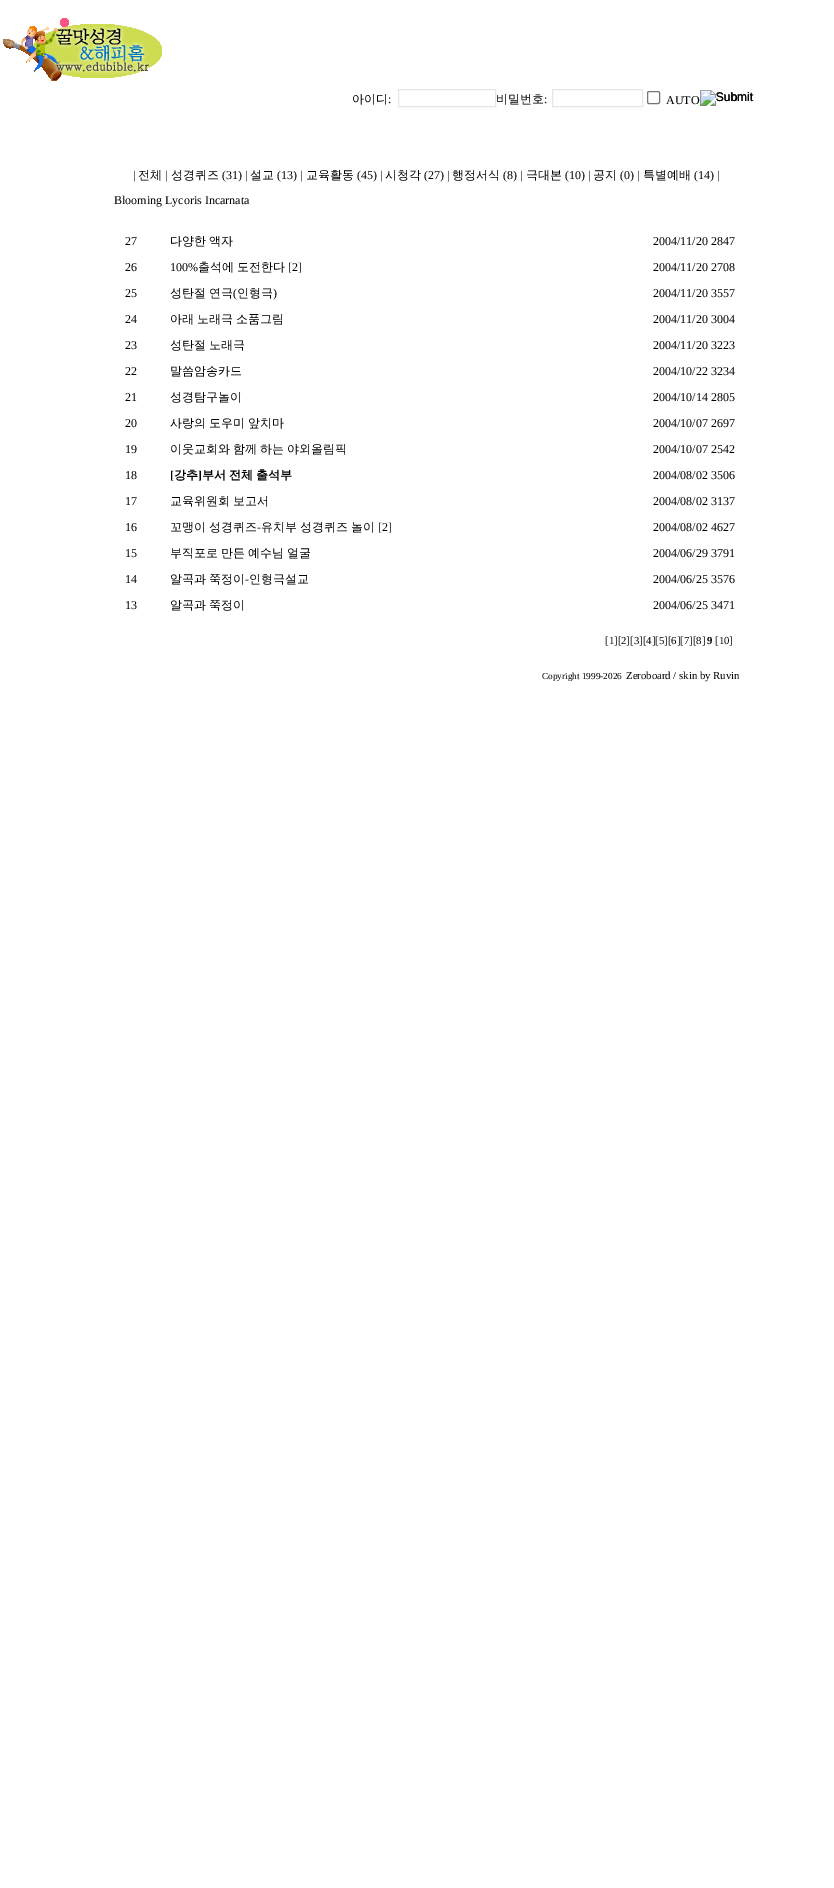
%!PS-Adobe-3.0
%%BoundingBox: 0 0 834 1888
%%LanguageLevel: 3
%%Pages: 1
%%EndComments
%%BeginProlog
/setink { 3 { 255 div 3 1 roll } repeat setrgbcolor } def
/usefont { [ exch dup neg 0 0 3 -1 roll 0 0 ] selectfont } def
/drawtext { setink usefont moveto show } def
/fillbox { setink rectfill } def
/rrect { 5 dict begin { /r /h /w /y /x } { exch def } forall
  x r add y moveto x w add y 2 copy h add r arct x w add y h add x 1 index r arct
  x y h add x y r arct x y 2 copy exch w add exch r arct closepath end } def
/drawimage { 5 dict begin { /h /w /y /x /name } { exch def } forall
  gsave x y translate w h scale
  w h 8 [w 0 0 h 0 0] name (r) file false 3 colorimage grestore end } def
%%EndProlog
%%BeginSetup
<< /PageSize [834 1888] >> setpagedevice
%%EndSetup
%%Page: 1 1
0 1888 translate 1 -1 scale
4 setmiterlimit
0 0 834 1888 255 255 255 fillbox
(assets/img1.rgb) 3 18 159 63 drawimage
(아이디) 352 103 /WenQuanYiZenHei-Medium 12 0 0 0 drawtext
(:) 388 103 /LiberationSerif-Regular 12 0 0 0 drawtext
230 230 230 setink
398.5 89.5 97 17 rectstroke
(비밀번호) 496 103 /WenQuanYiZenHei-Medium 12 0 0 0 drawtext
(:) 544 103 /LiberationSerif-Regular 12 0 0 0 drawtext
230 230 230 setink
552.5 89.5 90 17 rectstroke
118 118 118 setink
647.5 91.5 12 12 1.5 rrect stroke
(AUTO) 666 104 /LiberationSerif-Regular 12 0 0 0 drawtext
(assets/img2.rgb) 700 90 53 16 drawimage
(Submit) 716 101 /LiberationSans-Regular 12 0 0 0 drawtext
(|) 133 179 /LiberationSerif-Regular 12 0 0 0 drawtext
(전체) 138 179 /WenQuanYiZenHei-Medium 12 0 0 0 drawtext
(|) 165 179 /LiberationSerif-Regular 12 0 0 0 drawtext
(성경퀴즈) 171 179 /WenQuanYiZenHei-Medium 12 0 0 0 drawtext
(\(31\) |) 222 179 /LiberationSerif-Regular 12 0 0 0 drawtext
(설교) 250 179 /WenQuanYiZenHei-Medium 12 0 0 0 drawtext
(\(13\) |) 277 179 /LiberationSerif-Regular 12 0 0 0 drawtext
(교육활동) 306 179 /WenQuanYiZenHei-Medium 12 0 0 0 drawtext
(\(45\) |) 357 179 /LiberationSerif-Regular 12 0 0 0 drawtext
(시청각) 385 179 /WenQuanYiZenHei-Medium 12 0 0 0 drawtext
(\(27\) |) 424 179 /LiberationSerif-Regular 12 0 0 0 drawtext
(행정서식) 452 179 /WenQuanYiZenHei-Medium 12 0 0 0 drawtext
(\(8\) |) 503 179 /LiberationSerif-Regular 12 0 0 0 drawtext
(극대본) 526 179 /WenQuanYiZenHei-Medium 12 0 0 0 drawtext
(\(10\) |) 565 179 /LiberationSerif-Regular 12 0 0 0 drawtext
(공지) 593 179 /WenQuanYiZenHei-Medium 12 0 0 0 drawtext
(\(0\) |) 620 179 /LiberationSerif-Regular 12 0 0 0 drawtext
(특별예배) 643 179 /WenQuanYiZenHei-Medium 12 0 0 0 drawtext
(\(14\) |) 694 179 /LiberationSerif-Regular 12 0 0 0 drawtext
(Blooming Lycoris Incarnata) 114 204 /LiberationSerif-Regular 12 0 0 0 drawtext
(27) 125 245 /LiberationSerif-Regular 12 0 0 0 drawtext
/WenQuanYiZenHei-Medium 12 usefont
170 245 moveto -0.5 0 32 (다양한 액자) widthshow
(2004/11/20 2847) 653 245 /LiberationSerif-Regular 12 0 0 0 drawtext
(26) 125 271 /LiberationSerif-Regular 12 0 0 0 drawtext
(100%) 170 271 /LiberationSerif-Regular 12 0 0 0 drawtext
/WenQuanYiZenHei-Medium 12 usefont
198 271 moveto -0.5 0 32 (출석에 도전한다) widthshow
([2]) 288 271 /LiberationSerif-Regular 12 0 0 0 drawtext
(2004/11/20 2708) 653 271 /LiberationSerif-Regular 12 0 0 0 drawtext
(25) 125 297 /LiberationSerif-Regular 12 0 0 0 drawtext
/WenQuanYiZenHei-Medium 12 usefont
170 297 moveto -0.5 0 32 (성탄절 연극) widthshow
(\() 233 297 /LiberationSerif-Regular 12 0 0 0 drawtext
(인형극) 237 297 /WenQuanYiZenHei-Medium 12 0 0 0 drawtext
(\)) 273 297 /LiberationSerif-Regular 12 0 0 0 drawtext
(2004/11/20 3557) 653 297 /LiberationSerif-Regular 12 0 0 0 drawtext
(24) 125 323 /LiberationSerif-Regular 12 0 0 0 drawtext
/WenQuanYiZenHei-Medium 12 usefont
170 323 moveto -0.5 0 32 (아래 노래극 소품그림) widthshow
(2004/11/20 3004) 653 323 /LiberationSerif-Regular 12 0 0 0 drawtext
(23) 125 349 /LiberationSerif-Regular 12 0 0 0 drawtext
/WenQuanYiZenHei-Medium 12 usefont
170 349 moveto -0.5 0 32 (성탄절 노래극) widthshow
(2004/11/20 3223) 653 349 /LiberationSerif-Regular 12 0 0 0 drawtext
(22) 125 375 /LiberationSerif-Regular 12 0 0 0 drawtext
(말씀암송카드) 170 375 /WenQuanYiZenHei-Medium 12 0 0 0 drawtext
(2004/10/22 3234) 653 375 /LiberationSerif-Regular 12 0 0 0 drawtext
(21) 125 401 /LiberationSerif-Regular 12 0 0 0 drawtext
(성경탐구놀이) 170 401 /WenQuanYiZenHei-Medium 12 0 0 0 drawtext
(2004/10/14 2805) 653 401 /LiberationSerif-Regular 12 0 0 0 drawtext
(20) 125 427 /LiberationSerif-Regular 12 0 0 0 drawtext
/WenQuanYiZenHei-Medium 12 usefont
170 427 moveto -0.5 0 32 (사랑의 도우미 앞치마) widthshow
(2004/10/07 2697) 653 427 /LiberationSerif-Regular 12 0 0 0 drawtext
(19) 125 453 /LiberationSerif-Regular 12 0 0 0 drawtext
/WenQuanYiZenHei-Medium 12 usefont
170 453 moveto -0.5 0 32 (이웃교회와 함께 하는 야외올림픽) widthshow
(2004/10/07 2542) 653 453 /LiberationSerif-Regular 12 0 0 0 drawtext
(18) 125 479 /LiberationSerif-Regular 12 0 0 0 drawtext
([) 170 479 /LiberationSerif-Bold 12 0 0 0 drawtext
(강추) 174 479 /WenQuanYiZenHei-Bold 12 0 0 0 drawtext
(]) 198 479 /LiberationSerif-Bold 12 0 0 0 drawtext
/WenQuanYiZenHei-Bold 12 usefont
202 479 moveto -0.5 0 32 (부서 전체 출석부) widthshow
(2004/08/02 3506) 653 479 /LiberationSerif-Regular 12 0 0 0 drawtext
(17) 125 505 /LiberationSerif-Regular 12 0 0 0 drawtext
/WenQuanYiZenHei-Medium 12 usefont
170 505 moveto -0.5 0 32 (교육위원회 보고서) widthshow
(2004/08/02 3137) 653 505 /LiberationSerif-Regular 12 0 0 0 drawtext
(16) 125 531 /LiberationSerif-Regular 12 0 0 0 drawtext
/WenQuanYiZenHei-Medium 12 usefont
170 531 moveto -0.5 0 32 (꼬맹이 성경퀴즈) widthshow
(-) 257 531 /LiberationSerif-Regular 12 0 0 0 drawtext
/WenQuanYiZenHei-Medium 12 usefont
261 531 moveto -0.5 0 32 (유치부 성경퀴즈 놀이) widthshow
([2]) 378 531 /LiberationSerif-Regular 12 0 0 0 drawtext
(2004/08/02 4627) 653 531 /LiberationSerif-Regular 12 0 0 0 drawtext
(15) 125 557 /LiberationSerif-Regular 12 0 0 0 drawtext
/WenQuanYiZenHei-Medium 12 usefont
170 557 moveto -0.5 0 32 (부직포로 만든 예수님 얼굴) widthshow
(2004/06/29 3791) 653 557 /LiberationSerif-Regular 12 0 0 0 drawtext
(14) 125 583 /LiberationSerif-Regular 12 0 0 0 drawtext
/WenQuanYiZenHei-Medium 12 usefont
170 583 moveto -0.5 0 32 (알곡과 쭉정이) widthshow
(-) 245 583 /LiberationSerif-Regular 12 0 0 0 drawtext
(인형극설교) 249 583 /WenQuanYiZenHei-Medium 12 0 0 0 drawtext
(2004/06/25 3576) 653 583 /LiberationSerif-Regular 12 0 0 0 drawtext
(13) 125 609 /LiberationSerif-Regular 12 0 0 0 drawtext
/WenQuanYiZenHei-Medium 12 usefont
170 609 moveto -0.5 0 32 (알곡과 쭉정이) widthshow
(2004/06/25 3471) 653 609 /LiberationSerif-Regular 12 0 0 0 drawtext
([1][2][3][4][5][6][7][8]) 605 644 /LiberationSerif-Regular 10.75 0 0 0 drawtext
(9) 707 644 /LiberationSerif-Bold 10.75 0 0 0 drawtext
([10]) 715 644 /LiberationSerif-Regular 10.75 0 0 0 drawtext
(Copyright 1999-2026) 542 679 /LiberationSerif-Regular 9.25 0 0 0 drawtext
(Zeroboard / skin by Ruvin) 626 679 /LiberationSerif-Regular 10.75 0 0 0 drawtext
showpage
%%EOF
